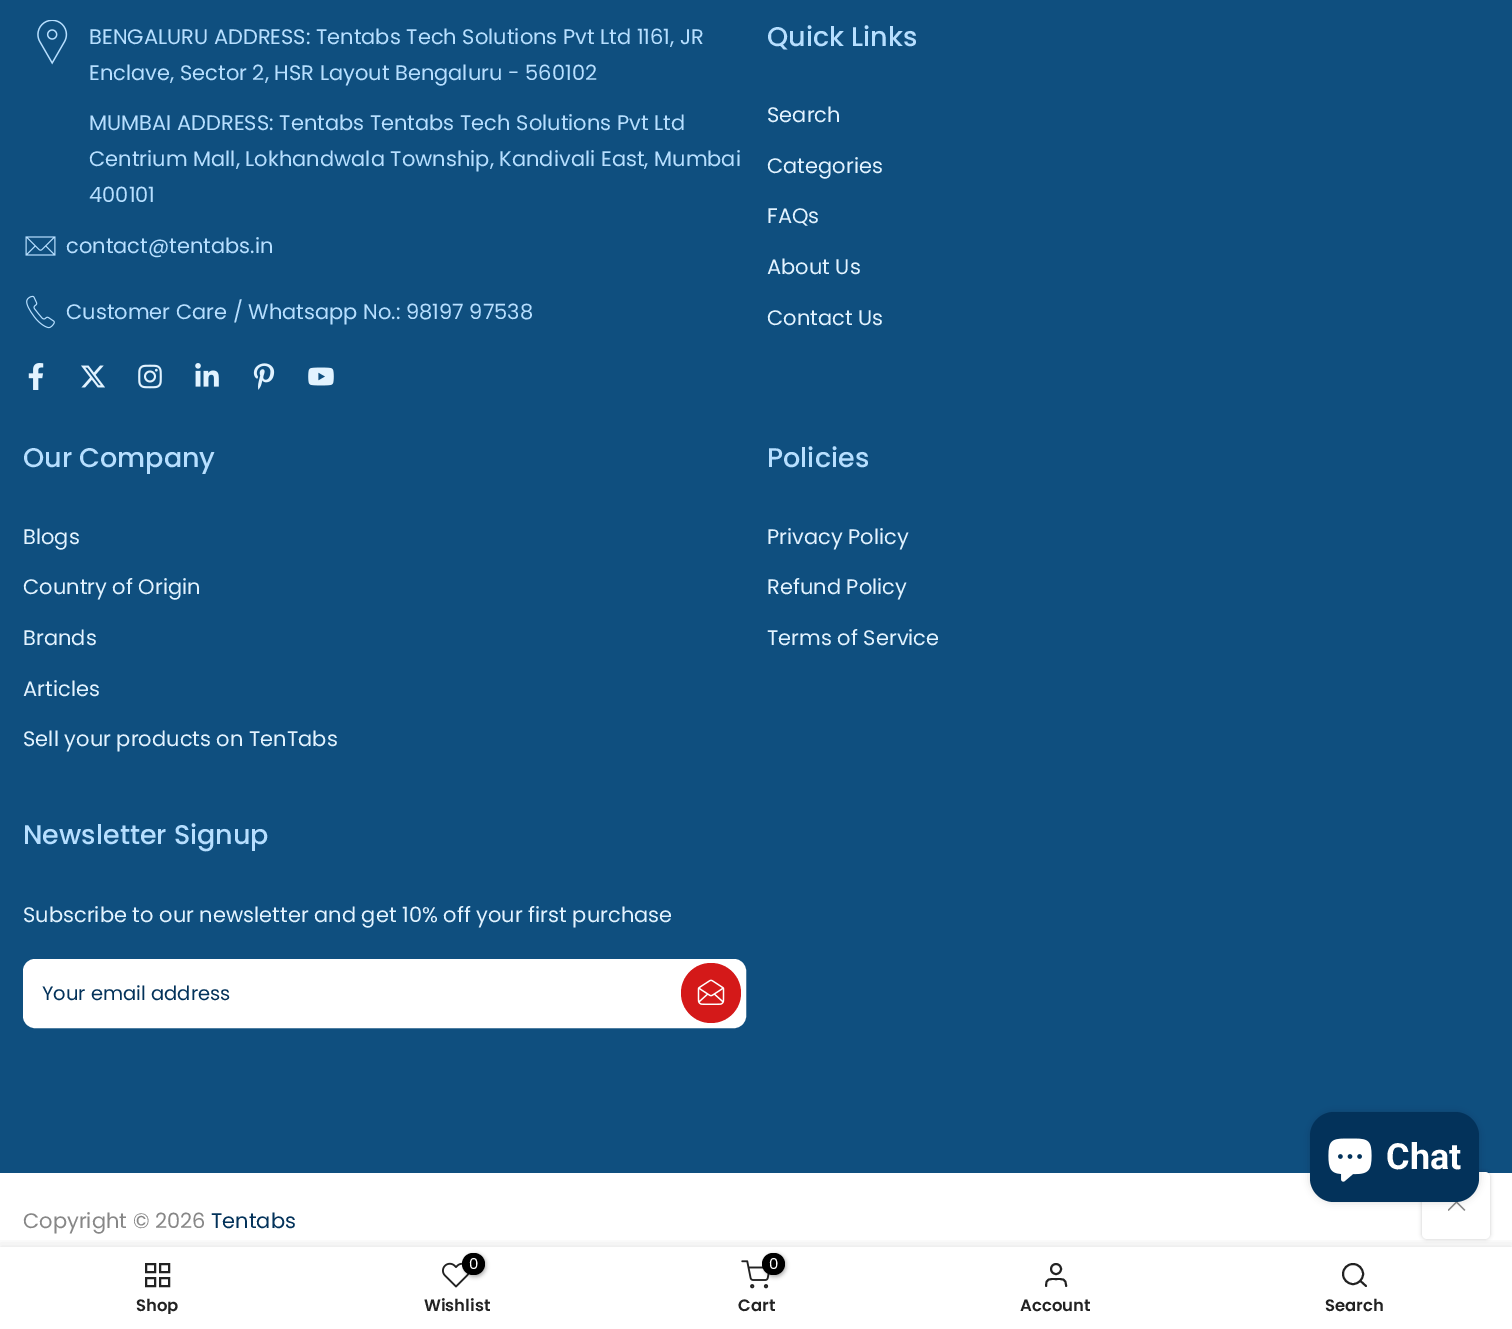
%!PS-Adobe-3.0
%%BoundingBox: 0 0 1512 1329
%%LanguageLevel: 3
%%Pages: 1
%%EndComments
%%BeginProlog
/setink { 3 { 255 div 3 1 roll } repeat setrgbcolor } def
/usefont { [ exch dup neg 0 0 3 -1 roll 0 0 ] selectfont } def
/drawtext { setink usefont moveto show } def
/fillbox { setink rectfill } def
/setalpha { dup .setfillconstantalpha .setstrokeconstantalpha } def
/disc { newpath 0 360 arc closepath } def
/rrect { 5 dict begin { /r /h /w /y /x } { exch def } forall
  x r add y moveto x w add y 2 copy h add r arct x w add y h add x 1 index r arct
  x y h add x y r arct x y 2 copy exch w add exch r arct closepath end } def
/softshadow { 12 dict begin { /a /b /q /h /w /y /x } { exch def } forall gsave /was 0 def
  9 -2 -9 { dup b mul 4 div /e exch def 1 sub .425 mul 2.718 exch exp 1 add a .99 .min exch div /now exch def
    1 1 now sub 1 was sub div sub setalpha /was now def
    w h .min e 2 mul add 0 gt { x e sub y e sub w e 2 mul add h e 2 mul add
      q e add b .6 mul add w h .min 2 div e add .min 0 .max rrect fill } if } for grestore end } def
/drawimage { 5 dict begin { /h /w /y /x /name } { exch def } forall
  gsave x y translate w h scale
  w h 8 [w 0 0 h 0 0] name (r) file false 3 colorimage grestore end } def
%%EndProlog
%%BeginSetup
<< /PageSize [1512 1329] /PageUsesTransparency true >> setpagedevice
%%EndSetup
%%Page: 1 1
0 .pushpdf14devicefilter
0 1329 translate 1 -1 scale
4 setmiterlimit
0 0 1512 1329 255 255 255 fillbox
0 0 1512 1173 15 79 127 fillbox
(assets/img1.rgb) 37 20 31 45 drawimage
(BENGALURU ADDRESS: Tentabs Tech Solutions Pvt Ltd 1161, JR) 89 44 /Poppins-Regular 21 183 223 255 drawtext
(Enclave, Sector 2, HSR Layout Bengaluru - 560102) 89 80 /Poppins-Regular 21 183 223 255 drawtext
(MUMBAI ADDRESS: Tentabs Tentabs Tech Solutions Pvt Ltd) 89 130 /Poppins-Regular 21 183 223 255 drawtext
(Centrium Mall, Lokhandwala Township, Kandivali East, Mumbai) 89 166 /Poppins-Regular 21 183 223 255 drawtext
(400101) 89 202 /Poppins-Regular 21 183 223 255 drawtext
(assets/img2.rgb) 25 236 31 20 drawimage
(contact@tentabs.in) 66 253 /Poppins-Regular 21 183 223 255 drawtext
(assets/img3.rgb) 26 295 29 34 drawimage
(Customer Care / Whatsapp No.: 98197 97538) 66 319 /Poppins-Regular 21 183 223 255 drawtext
(assets/img4.rgb) 28 363 16 27 drawimage
(assets/img5.rgb) 81 365 24 23 drawimage
(assets/img6.rgb) 138 364 24 25 drawimage
(assets/img7.rgb) 195 363 24 24 drawimage
(assets/img8.rgb) 253 363 22 27 drawimage
(assets/img9.rgb) 308 367 26 19 drawimage
(Quick Links) 767 46 /Poppins-Medium 27 183 223 255 drawtext
(Search) 767 122 /Poppins-Regular 21 226 243 255 drawtext
(Categories) 767 173 /Poppins-Regular 21 226 243 255 drawtext
(FAQs) 767 223 /Poppins-Regular 21 226 243 255 drawtext
(About Us) 767 274 /Poppins-Regular 21 226 243 255 drawtext
(Contact Us) 767 325 /Poppins-Regular 21 226 243 255 drawtext
(Our Company) 23 467 /Poppins-Medium 27 183 223 255 drawtext
(Blogs) 23 544 /Poppins-Regular 21 226 243 255 drawtext
(Country of Origin) 23 594 /Poppins-Regular 21 226 243 255 drawtext
(Brands) 23 645 /Poppins-Regular 21 226 243 255 drawtext
(Articles) 23 696 /Poppins-Regular 21 226 243 255 drawtext
(Sell your products on TenTabs) 23 746 /Poppins-Regular 21 226 243 255 drawtext
(Policies) 767 467 /Poppins-Medium 27 183 223 255 drawtext
(Privacy Policy) 767 544 /Poppins-Regular 21 226 243 255 drawtext
(Refund Policy) 767 594 /Poppins-Regular 21 226 243 255 drawtext
(Terms of Service) 767 645 /Poppins-Regular 21 226 243 255 drawtext
(Newsletter Signup) 23 844 /Poppins-Medium 27 183 223 255 drawtext
(Subscribe to our newsletter and get 10% off your first purchase) 23 922 /Poppins-Regular 21 226 243 255 drawtext
255 255 255 setink
24 960 721 67 11 rrect gsave fill grestore
2 setlinewidth
stroke
(Your email address) 42 1000 /Poppins-Regular 19.5 3 50 90 drawtext
212 25 25 setink
711 993 30 disc fill
(assets/img10.rgb) 697 979 28 26 drawimage
(Copyright © 2026) 23 1228 /Poppins-Regular 21 135 135 135 drawtext
(Tentabs) 211 1228 /Poppins-Regular 21 3 50 90 drawtext
0 0 0 setink
1422 1172 68 67 5 2 0.2 softshadow
gsave
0 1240 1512 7 rectclip
0 1247 1512 82 0 7 0.12 softshadow
grestore
255 255 255 setink
1422 1172 68 67 5 rrect fill
(assets/img12.rgb) 1448 1201 18 10 drawimage
0 0 0 setink
1310 1112 169 90 24 4 0.15 softshadow
3 50 90 setink
1310 1112 169 90 24 rrect fill
(assets/img11.rgb) 1328 1138 44 44 drawimage
(Chat) 1386 1169 /Roboto-Bold 36 255 255 255 drawtext
34 34 34 setink
146 1264 9 8 rectstroke
160 1264 9 8 rectstroke
146 1278 9 8 rectstroke
160 1278 9 8 rectstroke
gsave
23 1298 270 16 rectclip
(Shop) 136 1311 /Poppins-SemiBold 16.5 34 34 34 drawtext
grestore
(assets/img13.rgb) 442 1262 28 26 drawimage
0 0 0 setink
464 1254 22 23 11 2 0.3 softshadow
462 1253 23 22 11 rrect fill
(0) 469 1269 /Poppins-Regular 15 255 255 255 drawtext
(Wishlist) 424 1311 /Poppins-SemiBold 16.5 34 34 34 drawtext
(assets/img14.rgb) 741 1260 29 29 drawimage
0 0 0 setink
764 1254 22 23 11 2 0.3 softshadow
762 1253 23 22 11 rrect fill
(0) 769 1269 /Poppins-Regular 15 255 255 255 drawtext
(Cart) 738 1311 /Poppins-SemiBold 16.5 34 34 34 drawtext
1.9 setlinewidth
1056 1269 5 disc stroke
1 setlinecap
1 setlinejoin
1066 1286 moveto 1066 1278.5 1063 1279 1056 1279 curveto 1049 1279 1046 1278.5 1046 1286 curveto stroke
(Account) 1020 1311 /Poppins-SemiBold 16.5 34 34 34 drawtext
0 setlinecap
0 setlinejoin
1353 1274 10 disc stroke
1 setlinecap
1 setlinejoin
1366 1286 moveto 1360.5 1281 lineto stroke
(Search) 1325 1311 /Poppins-SemiBold 16.5 34 34 34 drawtext
.poppdf14devicefilter showpage
%%EOF
